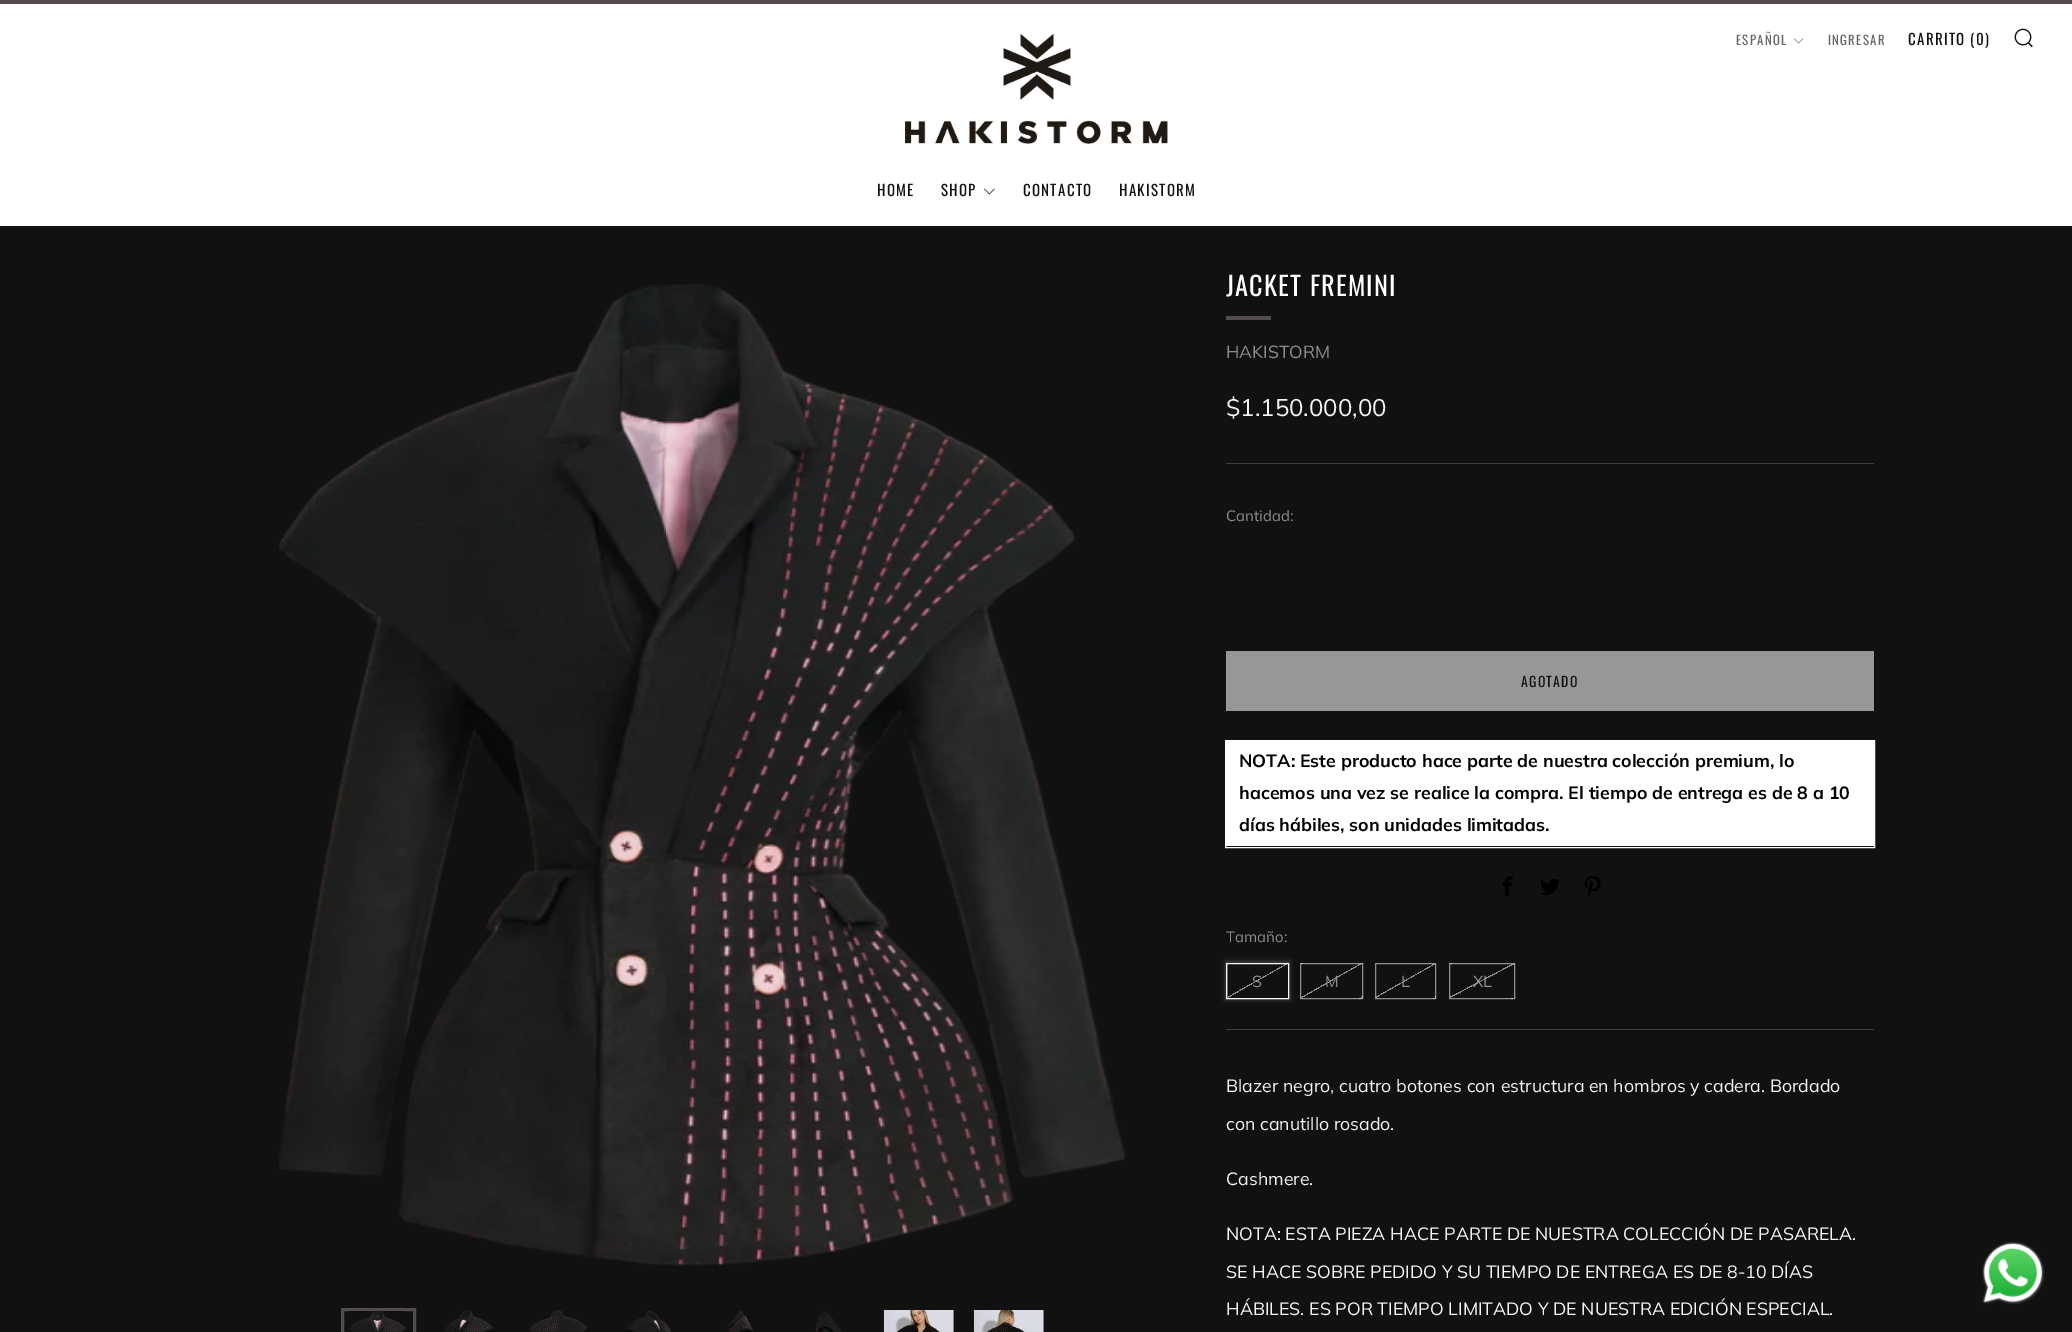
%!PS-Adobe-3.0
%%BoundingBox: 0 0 2072 1332
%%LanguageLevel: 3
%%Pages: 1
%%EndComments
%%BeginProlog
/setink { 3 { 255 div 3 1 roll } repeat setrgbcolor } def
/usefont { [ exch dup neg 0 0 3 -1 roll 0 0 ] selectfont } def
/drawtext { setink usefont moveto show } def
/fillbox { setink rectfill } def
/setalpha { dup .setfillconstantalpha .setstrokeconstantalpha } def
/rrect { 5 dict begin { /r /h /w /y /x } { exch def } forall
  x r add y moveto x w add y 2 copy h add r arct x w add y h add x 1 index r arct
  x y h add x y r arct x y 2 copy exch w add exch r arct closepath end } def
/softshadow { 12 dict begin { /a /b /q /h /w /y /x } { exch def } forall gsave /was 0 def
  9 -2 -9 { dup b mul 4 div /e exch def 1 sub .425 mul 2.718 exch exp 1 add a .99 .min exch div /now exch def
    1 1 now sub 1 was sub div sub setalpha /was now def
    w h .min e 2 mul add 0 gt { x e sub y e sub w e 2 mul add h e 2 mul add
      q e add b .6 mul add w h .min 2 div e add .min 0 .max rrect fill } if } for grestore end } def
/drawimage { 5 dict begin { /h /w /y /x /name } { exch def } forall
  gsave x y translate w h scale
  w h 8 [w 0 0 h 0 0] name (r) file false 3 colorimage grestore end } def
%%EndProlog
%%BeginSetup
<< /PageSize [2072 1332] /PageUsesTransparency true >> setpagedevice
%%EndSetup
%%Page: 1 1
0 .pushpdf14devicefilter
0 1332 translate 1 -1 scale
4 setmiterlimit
0 0 2072 1332 17 17 17 fillbox
0 0 2072 4 83 76 76 fillbox
0 4 2072 222 255 255 255 fillbox
/Oswald-Regular 12.75 usefont
102 102 102 setink
1736 45 moveto 1.25 0 (ESPAÑOL) ashow
(assets/img1.rgb) 1794 38 10 6 drawimage
1828 45 moveto 1.25 0 (INGRESAR) ashow
/Oswald-Regular 15 usefont
17 17 17 setink
1908 45 moveto 1.25 0 (CARRITO \(0\)) ashow
(assets/img2.rgb) 2014 28 19 20 drawimage
877 196 moveto 1.25 0 (HOME) ashow
941 196 moveto 1.25 0 (SHOP) ashow
(assets/img3.rgb) 984 188 11 7 drawimage
1023 196 moveto 1.25 0 (CONTACTO) ashow
1119 196 moveto 1.25 0 (HAKISTORM) ashow
(assets/img4.rgb) 905 33 263 111 drawimage
(assets/img5.rgb) 279 284 847 982 drawimage
83 76 76 setink
3 setlinewidth
342.5 1309.5 72 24 rectstroke
(assets/img6.rgb) 349 1310 57 22 drawimage
(assets/img7.rgb) 445 1310 49 22 drawimage
(assets/img8.rgb) 529 1310 58 22 drawimage
(assets/img9.rgb) 626 1310 45 22 drawimage
(assets/img10.rgb) 725 1310 29 22 drawimage
(assets/img11.rgb) 815 1311 27 21 drawimage
(assets/img12.rgb) 883 1310 71 22 drawimage
(assets/img13.rgb) 973 1310 71 22 drawimage
/Oswald-Regular 26.25 usefont
255 255 255 setink
1226 296 moveto 1.25 0 (JACKET FREMINI) ashow
1226 316 45 4 83 76 76 fillbox
(HAKISTORM) 1226 358 /Muli-Regular 17.5 142 142 142 drawtext
($1.150.000,00) 1226 416 /Muli-Regular 24 245 245 245 drawtext
1226 463 648 1 63 63 63 fillbox
(Cantidad:) 1226 521 /Muli-Regular 15 142 142 142 drawtext
1226 651 648 60 151 151 151 fillbox
/Oswald-Regular 13.75 usefont
17 17 17 setink
1521 687 moveto 1.25 0 (AGOTADO) ashow
1226 741 648 105 255 255 255 fillbox
1 setlinewidth
1225.5 740.5 649 107 rectstroke
(NOTA: Este producto hace parte de nuestra colección premium, lo) 1239 767 /Muli-Bold 17.75 0 0 0 drawtext
(hacemos una vez se realice la compra. El tiempo de entrega es de 8 a 10) 1239 799 /Muli-Bold 17.75 0 0 0 drawtext
(días hábiles, son unidades limitadas.) 1239 831 /Muli-Bold 17.75 0 0 0 drawtext
(assets/img14.rgb) 1502 876 11 21 drawimage
(assets/img15.rgb) 1540 879 20 16 drawimage
(assets/img16.rgb) 1584 876 17 20 drawimage
(Tamaño:) 1226 942 /Muli-Regular 15 142 142 142 drawtext
245 245 245 setink
1225 961 65 39 0 2 0.2 softshadow
gsave 1228 964 moveto 1288 964 lineto 1288 998 lineto 1228 998 lineto closepath clip newpath
<< /ShadingType 2 /ColorSpace /DeviceRGB /Coords [1272 1006 1243 955] /Extend [true true] /Function << /FunctionType 3 /Domain [0 1] /Functions [<< /FunctionType 2 /Domain [0 1] /C0 [0.067 0.067 0.067] /C1 [0.067 0.067 0.067] /N 1 >> << /FunctionType 2 /Domain [0 1] /C0 [0.557 0.557 0.557] /C1 [0.557 0.557 0.557] /N 1 >> << /FunctionType 2 /Domain [0 1] /C0 [0.067 0.067 0.067] /C1 [0.067 0.067 0.067] /N 1 >>] /Bounds [0.49 0.51] /Encode [0 1 0 1 0 1] >> >> shfill grestore
1226.5 963.5 62 35 rectstroke
(S) 1252 987 /Muli-Regular 16 142 142 142 drawtext
gsave 1301 963 moveto 1303 963 lineto 1303 964 lineto 1301 964 lineto closepath clip newpath
<< /ShadingType 2 /ColorSpace /DeviceRGB /Coords [1346 973 1317 921] /Extend [true true] /Function << /FunctionType 3 /Domain [0 1] /Functions [<< /FunctionType 2 /Domain [0 1] /C0 [0.067 0.067 0.067] /C1 [0.067 0.067 0.067] /N 1 >> << /FunctionType 2 /Domain [0 1] /C0 [0.557 0.557 0.557] /C1 [0.557 0.557 0.557] /N 1 >> << /FunctionType 2 /Domain [0 1] /C0 [0.067 0.067 0.067] /C1 [0.067 0.067 0.067] /N 1 >>] /Bounds [0.49 0.51] /Encode [0 1 0 1 0 1] >> >> shfill grestore
gsave 1361 963 moveto 1363 963 lineto 1363 964 lineto 1361 964 lineto closepath clip newpath
<< /ShadingType 2 /ColorSpace /DeviceRGB /Coords [1406 973 1377 921] /Extend [true true] /Function << /FunctionType 3 /Domain [0 1] /Functions [<< /FunctionType 2 /Domain [0 1] /C0 [0.067 0.067 0.067] /C1 [0.067 0.067 0.067] /N 1 >> << /FunctionType 2 /Domain [0 1] /C0 [0.557 0.557 0.557] /C1 [0.557 0.557 0.557] /N 1 >> << /FunctionType 2 /Domain [0 1] /C0 [0.067 0.067 0.067] /C1 [0.067 0.067 0.067] /N 1 >>] /Bounds [0.49 0.51] /Encode [0 1 0 1 0 1] >> >> shfill grestore
gsave 1300 964 moveto 1301 964 lineto 1301 965 lineto 1300 965 lineto closepath clip newpath
<< /ShadingType 2 /ColorSpace /DeviceRGB /Coords [1286 1006 1257 955] /Extend [true true] /Function << /FunctionType 3 /Domain [0 1] /Functions [<< /FunctionType 2 /Domain [0 1] /C0 [0.067 0.067 0.067] /C1 [0.067 0.067 0.067] /N 1 >> << /FunctionType 2 /Domain [0 1] /C0 [0.557 0.557 0.557] /C1 [0.557 0.557 0.557] /N 1 >> << /FunctionType 2 /Domain [0 1] /C0 [0.067 0.067 0.067] /C1 [0.067 0.067 0.067] /N 1 >>] /Bounds [0.49 0.51] /Encode [0 1 0 1 0 1] >> >> shfill grestore
gsave 1301 964 moveto 1361 964 lineto 1361 998 lineto 1301 998 lineto closepath clip newpath
<< /ShadingType 2 /ColorSpace /DeviceRGB /Coords [1346 1006 1317 955] /Extend [true true] /Function << /FunctionType 3 /Domain [0 1] /Functions [<< /FunctionType 2 /Domain [0 1] /C0 [0.067 0.067 0.067] /C1 [0.067 0.067 0.067] /N 1 >> << /FunctionType 2 /Domain [0 1] /C0 [0.557 0.557 0.557] /C1 [0.557 0.557 0.557] /N 1 >> << /FunctionType 2 /Domain [0 1] /C0 [0.067 0.067 0.067] /C1 [0.067 0.067 0.067] /N 1 >>] /Bounds [0.49 0.51] /Encode [0 1 0 1 0 1] >> >> shfill grestore
gsave 1361 996 moveto 1363 996 lineto 1363 998 lineto 1361 998 lineto closepath clip newpath
<< /ShadingType 2 /ColorSpace /DeviceRGB /Coords [1406 1006 1377 955] /Extend [true true] /Function << /FunctionType 3 /Domain [0 1] /Functions [<< /FunctionType 2 /Domain [0 1] /C0 [0.067 0.067 0.067] /C1 [0.067 0.067 0.067] /N 1 >> << /FunctionType 2 /Domain [0 1] /C0 [0.557 0.557 0.557] /C1 [0.557 0.557 0.557] /N 1 >> << /FunctionType 2 /Domain [0 1] /C0 [0.067 0.067 0.067] /C1 [0.067 0.067 0.067] /N 1 >>] /Bounds [0.49 0.51] /Encode [0 1 0 1 0 1] >> >> shfill grestore
gsave 1300 998 moveto 1301 998 lineto 1301 999 lineto 1300 999 lineto closepath clip newpath
<< /ShadingType 2 /ColorSpace /DeviceRGB /Coords [1286 1040 1257 989] /Extend [true true] /Function << /FunctionType 3 /Domain [0 1] /Functions [<< /FunctionType 2 /Domain [0 1] /C0 [0.067 0.067 0.067] /C1 [0.067 0.067 0.067] /N 1 >> << /FunctionType 2 /Domain [0 1] /C0 [0.557 0.557 0.557] /C1 [0.557 0.557 0.557] /N 1 >> << /FunctionType 2 /Domain [0 1] /C0 [0.067 0.067 0.067] /C1 [0.067 0.067 0.067] /N 1 >>] /Bounds [0.49 0.51] /Encode [0 1 0 1 0 1] >> >> shfill grestore
gsave 1358 998 moveto 1361 998 lineto 1361 999 lineto 1358 999 lineto closepath clip newpath
<< /ShadingType 2 /ColorSpace /DeviceRGB /Coords [1346 1040 1317 989] /Extend [true true] /Function << /FunctionType 3 /Domain [0 1] /Functions [<< /FunctionType 2 /Domain [0 1] /C0 [0.067 0.067 0.067] /C1 [0.067 0.067 0.067] /N 1 >> << /FunctionType 2 /Domain [0 1] /C0 [0.557 0.557 0.557] /C1 [0.557 0.557 0.557] /N 1 >> << /FunctionType 2 /Domain [0 1] /C0 [0.067 0.067 0.067] /C1 [0.067 0.067 0.067] /N 1 >>] /Bounds [0.49 0.51] /Encode [0 1 0 1 0 1] >> >> shfill grestore
0.55 setalpha
245 245 245 setink
1300.5 963.5 62 35 rectstroke
1 setalpha
(M) 1325 987 /Muli-Regular 16 142 142 142 drawtext
gsave 1376 963 moveto 1377 963 lineto 1377 964 lineto 1376 964 lineto closepath clip newpath
<< /ShadingType 2 /ColorSpace /DeviceRGB /Coords [1420 972 1391 921] /Extend [true true] /Function << /FunctionType 3 /Domain [0 1] /Functions [<< /FunctionType 2 /Domain [0 1] /C0 [0.067 0.067 0.067] /C1 [0.067 0.067 0.067] /N 1 >> << /FunctionType 2 /Domain [0 1] /C0 [0.557 0.557 0.557] /C1 [0.557 0.557 0.557] /N 1 >> << /FunctionType 2 /Domain [0 1] /C0 [0.067 0.067 0.067] /C1 [0.067 0.067 0.067] /N 1 >>] /Bounds [0.49 0.51] /Encode [0 1 0 1 0 1] >> >> shfill grestore
gsave 1435 963 moveto 1436 963 lineto 1436 964 lineto 1435 964 lineto closepath clip newpath
<< /ShadingType 2 /ColorSpace /DeviceRGB /Coords [1479 972 1450 921] /Extend [true true] /Function << /FunctionType 3 /Domain [0 1] /Functions [<< /FunctionType 2 /Domain [0 1] /C0 [0.067 0.067 0.067] /C1 [0.067 0.067 0.067] /N 1 >> << /FunctionType 2 /Domain [0 1] /C0 [0.557 0.557 0.557] /C1 [0.557 0.557 0.557] /N 1 >> << /FunctionType 2 /Domain [0 1] /C0 [0.067 0.067 0.067] /C1 [0.067 0.067 0.067] /N 1 >>] /Bounds [0.49 0.51] /Encode [0 1 0 1 0 1] >> >> shfill grestore
gsave 1375 964 moveto 1376 964 lineto 1376 965 lineto 1375 965 lineto closepath clip newpath
<< /ShadingType 2 /ColorSpace /DeviceRGB /Coords [1361 1006 1332 955] /Extend [true true] /Function << /FunctionType 3 /Domain [0 1] /Functions [<< /FunctionType 2 /Domain [0 1] /C0 [0.067 0.067 0.067] /C1 [0.067 0.067 0.067] /N 1 >> << /FunctionType 2 /Domain [0 1] /C0 [0.557 0.557 0.557] /C1 [0.557 0.557 0.557] /N 1 >> << /FunctionType 2 /Domain [0 1] /C0 [0.067 0.067 0.067] /C1 [0.067 0.067 0.067] /N 1 >>] /Bounds [0.49 0.51] /Encode [0 1 0 1 0 1] >> >> shfill grestore
gsave 1376 964 moveto 1435 964 lineto 1435 998 lineto 1376 998 lineto closepath clip newpath
<< /ShadingType 2 /ColorSpace /DeviceRGB /Coords [1420 1006 1391 955] /Extend [true true] /Function << /FunctionType 3 /Domain [0 1] /Functions [<< /FunctionType 2 /Domain [0 1] /C0 [0.067 0.067 0.067] /C1 [0.067 0.067 0.067] /N 1 >> << /FunctionType 2 /Domain [0 1] /C0 [0.557 0.557 0.557] /C1 [0.557 0.557 0.557] /N 1 >> << /FunctionType 2 /Domain [0 1] /C0 [0.067 0.067 0.067] /C1 [0.067 0.067 0.067] /N 1 >>] /Bounds [0.49 0.51] /Encode [0 1 0 1 0 1] >> >> shfill grestore
gsave 1435 996 moveto 1436 996 lineto 1436 998 lineto 1435 998 lineto closepath clip newpath
<< /ShadingType 2 /ColorSpace /DeviceRGB /Coords [1479 1006 1450 955] /Extend [true true] /Function << /FunctionType 3 /Domain [0 1] /Functions [<< /FunctionType 2 /Domain [0 1] /C0 [0.067 0.067 0.067] /C1 [0.067 0.067 0.067] /N 1 >> << /FunctionType 2 /Domain [0 1] /C0 [0.557 0.557 0.557] /C1 [0.557 0.557 0.557] /N 1 >> << /FunctionType 2 /Domain [0 1] /C0 [0.067 0.067 0.067] /C1 [0.067 0.067 0.067] /N 1 >>] /Bounds [0.49 0.51] /Encode [0 1 0 1 0 1] >> >> shfill grestore
gsave 1375 998 moveto 1376 998 lineto 1376 999 lineto 1375 999 lineto closepath clip newpath
<< /ShadingType 2 /ColorSpace /DeviceRGB /Coords [1361 1040 1332 989] /Extend [true true] /Function << /FunctionType 3 /Domain [0 1] /Functions [<< /FunctionType 2 /Domain [0 1] /C0 [0.067 0.067 0.067] /C1 [0.067 0.067 0.067] /N 1 >> << /FunctionType 2 /Domain [0 1] /C0 [0.557 0.557 0.557] /C1 [0.557 0.557 0.557] /N 1 >> << /FunctionType 2 /Domain [0 1] /C0 [0.067 0.067 0.067] /C1 [0.067 0.067 0.067] /N 1 >>] /Bounds [0.49 0.51] /Encode [0 1 0 1 0 1] >> >> shfill grestore
gsave 1432 998 moveto 1435 998 lineto 1435 999 lineto 1432 999 lineto closepath clip newpath
<< /ShadingType 2 /ColorSpace /DeviceRGB /Coords [1420 1040 1391 989] /Extend [true true] /Function << /FunctionType 3 /Domain [0 1] /Functions [<< /FunctionType 2 /Domain [0 1] /C0 [0.067 0.067 0.067] /C1 [0.067 0.067 0.067] /N 1 >> << /FunctionType 2 /Domain [0 1] /C0 [0.557 0.557 0.557] /C1 [0.557 0.557 0.557] /N 1 >> << /FunctionType 2 /Domain [0 1] /C0 [0.067 0.067 0.067] /C1 [0.067 0.067 0.067] /N 1 >>] /Bounds [0.49 0.51] /Encode [0 1 0 1 0 1] >> >> shfill grestore
0.55 setalpha
245 245 245 setink
1375.5 963.5 60 35 rectstroke
1 setalpha
(L) 1401 987 /Muli-Regular 16 142 142 142 drawtext
gsave 1450 963 moveto 1453 963 lineto 1453 964 lineto 1450 964 lineto closepath clip newpath
<< /ShadingType 2 /ColorSpace /DeviceRGB /Coords [1496 973 1468 921] /Extend [true true] /Function << /FunctionType 3 /Domain [0 1] /Functions [<< /FunctionType 2 /Domain [0 1] /C0 [0.067 0.067 0.067] /C1 [0.067 0.067 0.067] /N 1 >> << /FunctionType 2 /Domain [0 1] /C0 [0.557 0.557 0.557] /C1 [0.557 0.557 0.557] /N 1 >> << /FunctionType 2 /Domain [0 1] /C0 [0.067 0.067 0.067] /C1 [0.067 0.067 0.067] /N 1 >>] /Bounds [0.49 0.51] /Encode [0 1 0 1 0 1] >> >> shfill grestore
gsave 1514 963 moveto 1515 963 lineto 1515 964 lineto 1514 964 lineto closepath clip newpath
<< /ShadingType 2 /ColorSpace /DeviceRGB /Coords [1560 973 1532 921] /Extend [true true] /Function << /FunctionType 3 /Domain [0 1] /Functions [<< /FunctionType 2 /Domain [0 1] /C0 [0.067 0.067 0.067] /C1 [0.067 0.067 0.067] /N 1 >> << /FunctionType 2 /Domain [0 1] /C0 [0.557 0.557 0.557] /C1 [0.557 0.557 0.557] /N 1 >> << /FunctionType 2 /Domain [0 1] /C0 [0.067 0.067 0.067] /C1 [0.067 0.067 0.067] /N 1 >>] /Bounds [0.49 0.51] /Encode [0 1 0 1 0 1] >> >> shfill grestore
gsave 1449 964 moveto 1450 964 lineto 1450 965 lineto 1449 965 lineto closepath clip newpath
<< /ShadingType 2 /ColorSpace /DeviceRGB /Coords [1432 1007 1404 954] /Extend [true true] /Function << /FunctionType 3 /Domain [0 1] /Functions [<< /FunctionType 2 /Domain [0 1] /C0 [0.067 0.067 0.067] /C1 [0.067 0.067 0.067] /N 1 >> << /FunctionType 2 /Domain [0 1] /C0 [0.557 0.557 0.557] /C1 [0.557 0.557 0.557] /N 1 >> << /FunctionType 2 /Domain [0 1] /C0 [0.067 0.067 0.067] /C1 [0.067 0.067 0.067] /N 1 >>] /Bounds [0.49 0.51] /Encode [0 1 0 1 0 1] >> >> shfill grestore
gsave 1450 964 moveto 1514 964 lineto 1514 998 lineto 1450 998 lineto closepath clip newpath
<< /ShadingType 2 /ColorSpace /DeviceRGB /Coords [1496 1007 1468 954] /Extend [true true] /Function << /FunctionType 3 /Domain [0 1] /Functions [<< /FunctionType 2 /Domain [0 1] /C0 [0.067 0.067 0.067] /C1 [0.067 0.067 0.067] /N 1 >> << /FunctionType 2 /Domain [0 1] /C0 [0.557 0.557 0.557] /C1 [0.557 0.557 0.557] /N 1 >> << /FunctionType 2 /Domain [0 1] /C0 [0.067 0.067 0.067] /C1 [0.067 0.067 0.067] /N 1 >>] /Bounds [0.49 0.51] /Encode [0 1 0 1 0 1] >> >> shfill grestore
gsave 1514 996 moveto 1515 996 lineto 1515 998 lineto 1514 998 lineto closepath clip newpath
<< /ShadingType 2 /ColorSpace /DeviceRGB /Coords [1560 1007 1532 954] /Extend [true true] /Function << /FunctionType 3 /Domain [0 1] /Functions [<< /FunctionType 2 /Domain [0 1] /C0 [0.067 0.067 0.067] /C1 [0.067 0.067 0.067] /N 1 >> << /FunctionType 2 /Domain [0 1] /C0 [0.557 0.557 0.557] /C1 [0.557 0.557 0.557] /N 1 >> << /FunctionType 2 /Domain [0 1] /C0 [0.067 0.067 0.067] /C1 [0.067 0.067 0.067] /N 1 >>] /Bounds [0.49 0.51] /Encode [0 1 0 1 0 1] >> >> shfill grestore
gsave 1449 998 moveto 1450 998 lineto 1450 999 lineto 1449 999 lineto closepath clip newpath
<< /ShadingType 2 /ColorSpace /DeviceRGB /Coords [1432 1041 1404 988] /Extend [true true] /Function << /FunctionType 3 /Domain [0 1] /Functions [<< /FunctionType 2 /Domain [0 1] /C0 [0.067 0.067 0.067] /C1 [0.067 0.067 0.067] /N 1 >> << /FunctionType 2 /Domain [0 1] /C0 [0.557 0.557 0.557] /C1 [0.557 0.557 0.557] /N 1 >> << /FunctionType 2 /Domain [0 1] /C0 [0.067 0.067 0.067] /C1 [0.067 0.067 0.067] /N 1 >>] /Bounds [0.49 0.51] /Encode [0 1 0 1 0 1] >> >> shfill grestore
gsave 1511 998 moveto 1514 998 lineto 1514 999 lineto 1511 999 lineto closepath clip newpath
<< /ShadingType 2 /ColorSpace /DeviceRGB /Coords [1496 1041 1468 988] /Extend [true true] /Function << /FunctionType 3 /Domain [0 1] /Functions [<< /FunctionType 2 /Domain [0 1] /C0 [0.067 0.067 0.067] /C1 [0.067 0.067 0.067] /N 1 >> << /FunctionType 2 /Domain [0 1] /C0 [0.557 0.557 0.557] /C1 [0.557 0.557 0.557] /N 1 >> << /FunctionType 2 /Domain [0 1] /C0 [0.067 0.067 0.067] /C1 [0.067 0.067 0.067] /N 1 >>] /Bounds [0.49 0.51] /Encode [0 1 0 1 0 1] >> >> shfill grestore
0.55 setalpha
245 245 245 setink
1449.5 963.5 65 35 rectstroke
1 setalpha
(XL) 1473 987 /Muli-Regular 16 149 149 149 drawtext
1226 1029 648 1 63 63 63 fillbox
(Blazer negro, cuatro botones con estructura en hombros y cadera. Bordado) 1226 1092 /Muli-Regular 17.75 245 245 245 drawtext
(con canutillo rosado.) 1226 1130 /Muli-Regular 17.75 245 245 245 drawtext
(Cashmere.) 1226 1185 /Muli-Regular 17.75 245 245 245 drawtext
(NOTA: ESTA PIEZA HACE PARTE DE NUESTRA COLECCIÓN DE PASARELA.) 1226 1240 /Muli-Regular 17.75 245 245 245 drawtext
(SE HACE SOBRE PEDIDO Y SU TIEMPO DE ENTREGA ES DE 8-10 DÍAS) 1226 1278 /Muli-Regular 17.75 245 245 245 drawtext
(HÁBILES. ES POR TIEMPO LIMITADO Y DE NUESTRA EDICIÓN ESPECIAL.) 1226 1315 /Muli-Regular 17.75 245 245 245 drawtext
(assets/img17.rgb) 1982 1241 63 64 drawimage
.poppdf14devicefilter showpage
%%EOF
